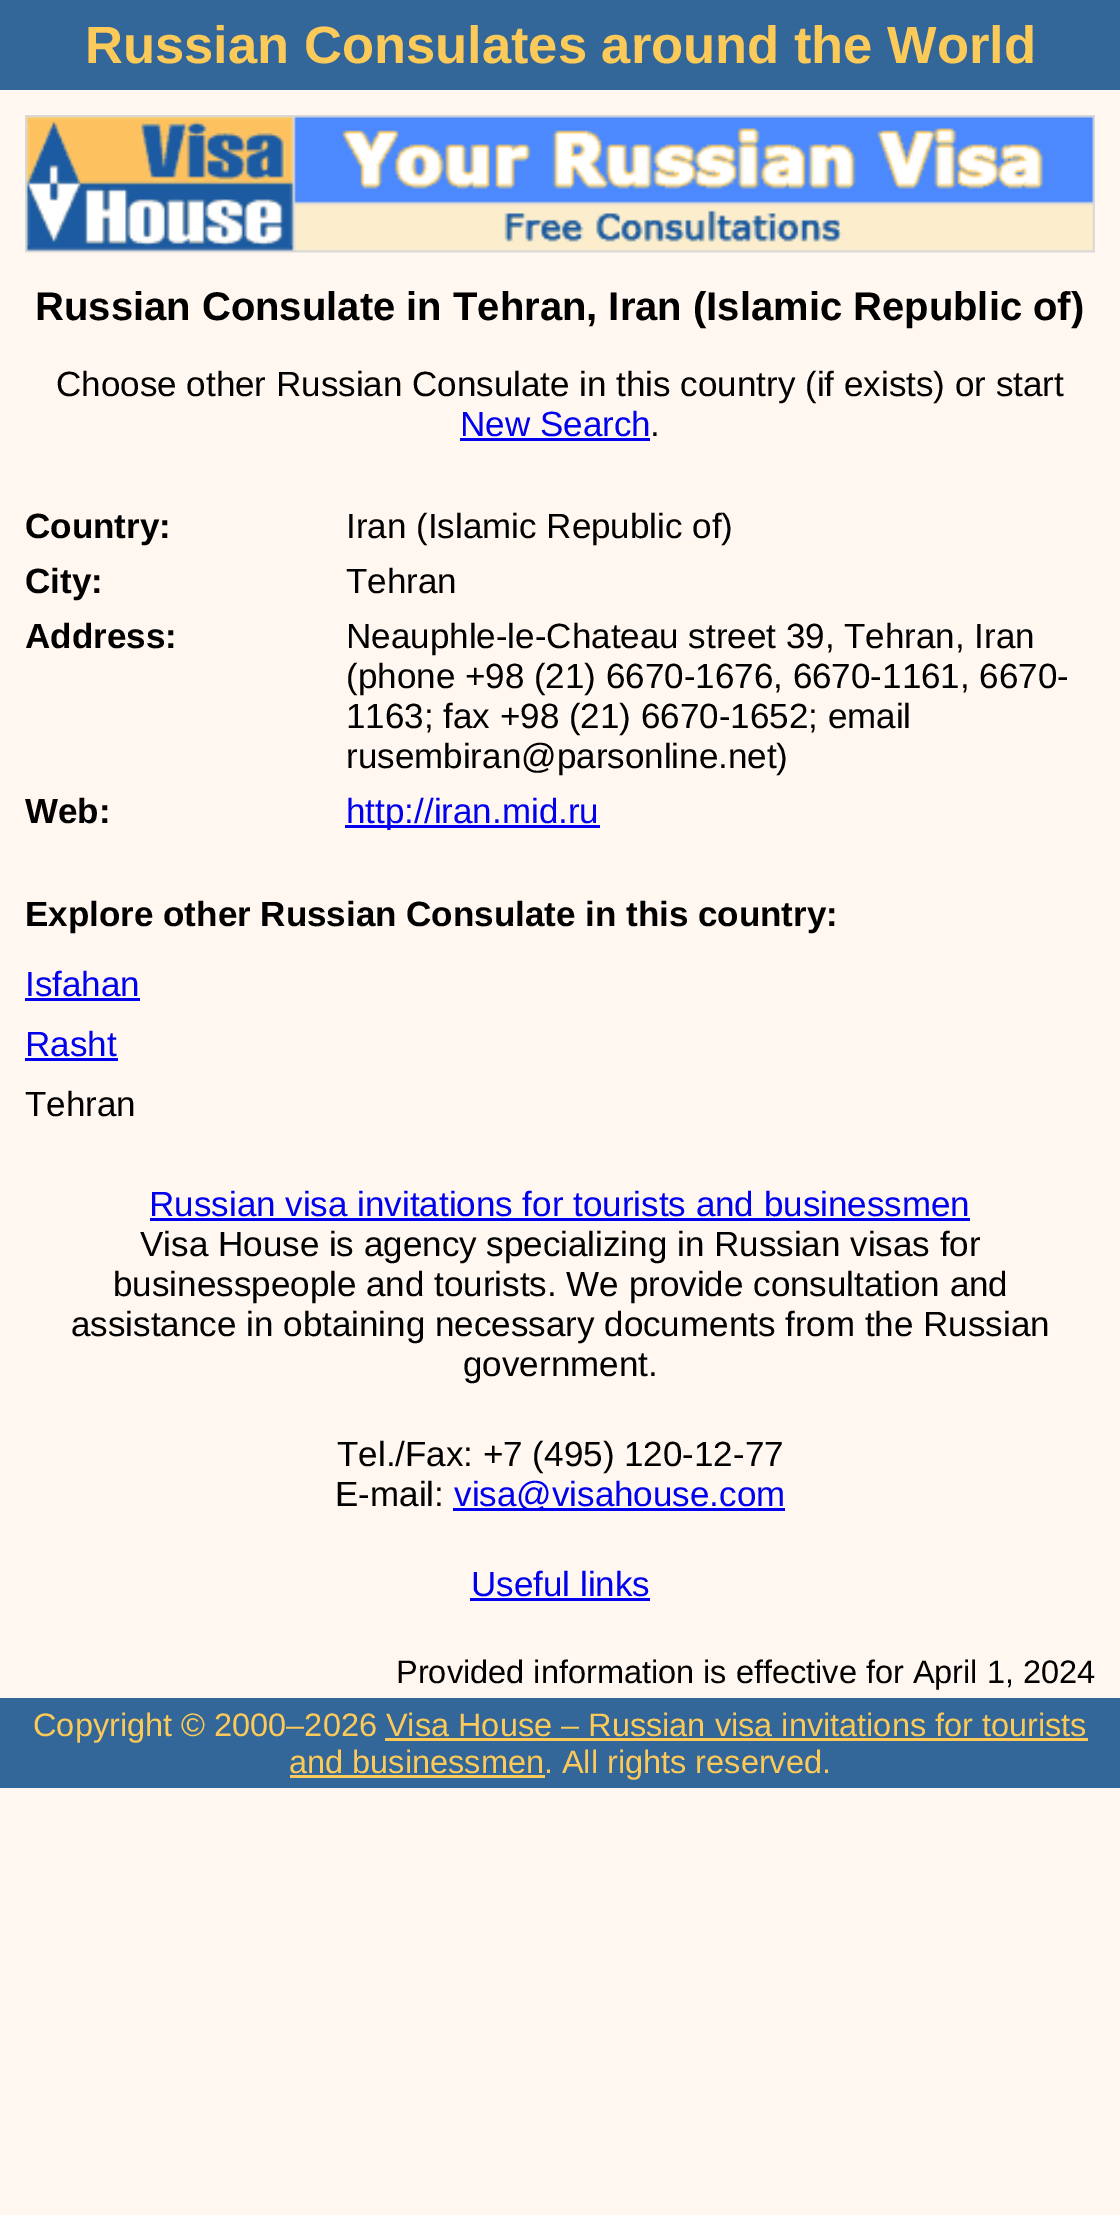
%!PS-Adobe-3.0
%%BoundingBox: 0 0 1120 2215
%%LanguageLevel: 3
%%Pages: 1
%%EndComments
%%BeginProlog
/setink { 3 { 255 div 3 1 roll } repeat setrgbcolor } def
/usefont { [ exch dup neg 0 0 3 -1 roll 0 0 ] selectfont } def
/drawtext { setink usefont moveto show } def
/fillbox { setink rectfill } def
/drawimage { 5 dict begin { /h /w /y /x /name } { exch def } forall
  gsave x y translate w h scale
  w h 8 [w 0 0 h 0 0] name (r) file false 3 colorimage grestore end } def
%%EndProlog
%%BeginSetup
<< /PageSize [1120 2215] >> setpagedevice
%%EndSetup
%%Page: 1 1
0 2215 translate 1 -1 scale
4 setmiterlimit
0 0 1120 2215 255 247 240 fillbox
0 0 1120 90 51 102 153 fillbox
(Russian Consulates around the World) 85 63 /LiberationSans-Bold 52.5 252 202 89 drawtext
(assets/img1.rgb) 25 115 1070 138 drawimage
(Russian Consulate in Tehran, Iran \(Islamic Republic of\)) 35 320 /LiberationSans-Bold 40 0 0 0 drawtext
(Choose other Russian Consulate in this country \(if exists\) or start) 56 396 /LiberationSans-Regular 35 0 0 0 drawtext
(New Search) 460 436 /LiberationSans-Regular 35 0 0 238 drawtext
460 438 190 3 0 0 238 fillbox
(.) 650 436 /LiberationSans-Regular 35 0 0 0 drawtext
(Country:) 25 538 /LiberationSans-Bold 35 0 0 0 drawtext
(Iran \(Islamic Republic of\)) 346 538 /LiberationSans-Regular 35 0 0 0 drawtext
(City:) 25 593 /LiberationSans-Bold 35 0 0 0 drawtext
(Tehran) 346 593 /LiberationSans-Regular 35 0 0 0 drawtext
(Address:) 25 648 /LiberationSans-Bold 35 0 0 0 drawtext
(Neauphle-le-Chateau street 39, Tehran, Iran) 346 648 /LiberationSans-Regular 35 0 0 0 drawtext
(\(phone +98 \(21\) 6670-1676, 6670-1161, 6670-) 346 688 /LiberationSans-Regular 35 0 0 0 drawtext
(1163; fax +98 \(21\) 6670-1652; email) 346 728 /LiberationSans-Regular 35 0 0 0 drawtext
(rusembiran@parsonline.net\)) 346 768 /LiberationSans-Regular 35 0 0 0 drawtext
(Web:) 25 823 /LiberationSans-Bold 35 0 0 0 drawtext
345 825 255 3 0 0 238 fillbox
gsave
345 790 750 40 rectclip
(http://iran.mid.ru) 346 823 /LiberationSans-Regular 35 0 0 238 drawtext
grestore
(Explore other Russian Consulate in this country:) 25 926 /LiberationSans-Bold 35 0 0 0 drawtext
(Isfahan) 25 996 /LiberationSans-Regular 35 0 0 238 drawtext
25 998 115 3 0 0 238 fillbox
(Rasht) 25 1056 /LiberationSans-Regular 35 0 0 238 drawtext
25 1058 93 3 0 0 238 fillbox
(Tehran) 25 1116 /LiberationSans-Regular 35 0 0 0 drawtext
(Russian visa invitations for tourists and businessmen) 149 1216 /LiberationSans-Regular 35 0 0 238 drawtext
150 1218 820 3 0 0 238 fillbox
(Visa House is agency specializing in Russian visas for) 140 1256 /LiberationSans-Regular 35 0 0 0 drawtext
(businesspeople and tourists. We provide consultation and) 113 1296 /LiberationSans-Regular 35 0 0 0 drawtext
(assistance in obtaining necessary documents from the Russian) 71 1336 /LiberationSans-Regular 35 0 0 0 drawtext
(government.) 463 1376 /LiberationSans-Regular 35 0 0 0 drawtext
(Tel./Fax: +7 \(495\) 120-12-77) 337 1466 /LiberationSans-Regular 35 0 0 0 drawtext
(E-mail:) 335 1506 /LiberationSans-Regular 35 0 0 0 drawtext
453 1508 332 3 0 0 238 fillbox
(visa@visahouse.com) 454 1506 /LiberationSans-Regular 35 0 0 238 drawtext
(Useful links) 471 1596 /LiberationSans-Regular 35 0 0 238 drawtext
470 1598 180 3 0 0 238 fillbox
(Provided information is effective for April 1, 2024) 396 1683 /LiberationSans-Regular 32.5 0 0 0 drawtext
0 1698 1120 90 51 102 153 fillbox
(Copyright © 2000–2026 Visa House – Russian visa invitations for tourists) 33 1736 /LiberationSans-Regular 32.5 252 202 89 drawtext
290 1775 255 3 252 202 89 fillbox
(and businessmen. All rights reserved.) 289 1773 /LiberationSans-Regular 32.5 252 202 89 drawtext
385 1738 703 3 252 202 89 fillbox
showpage
%%EOF
